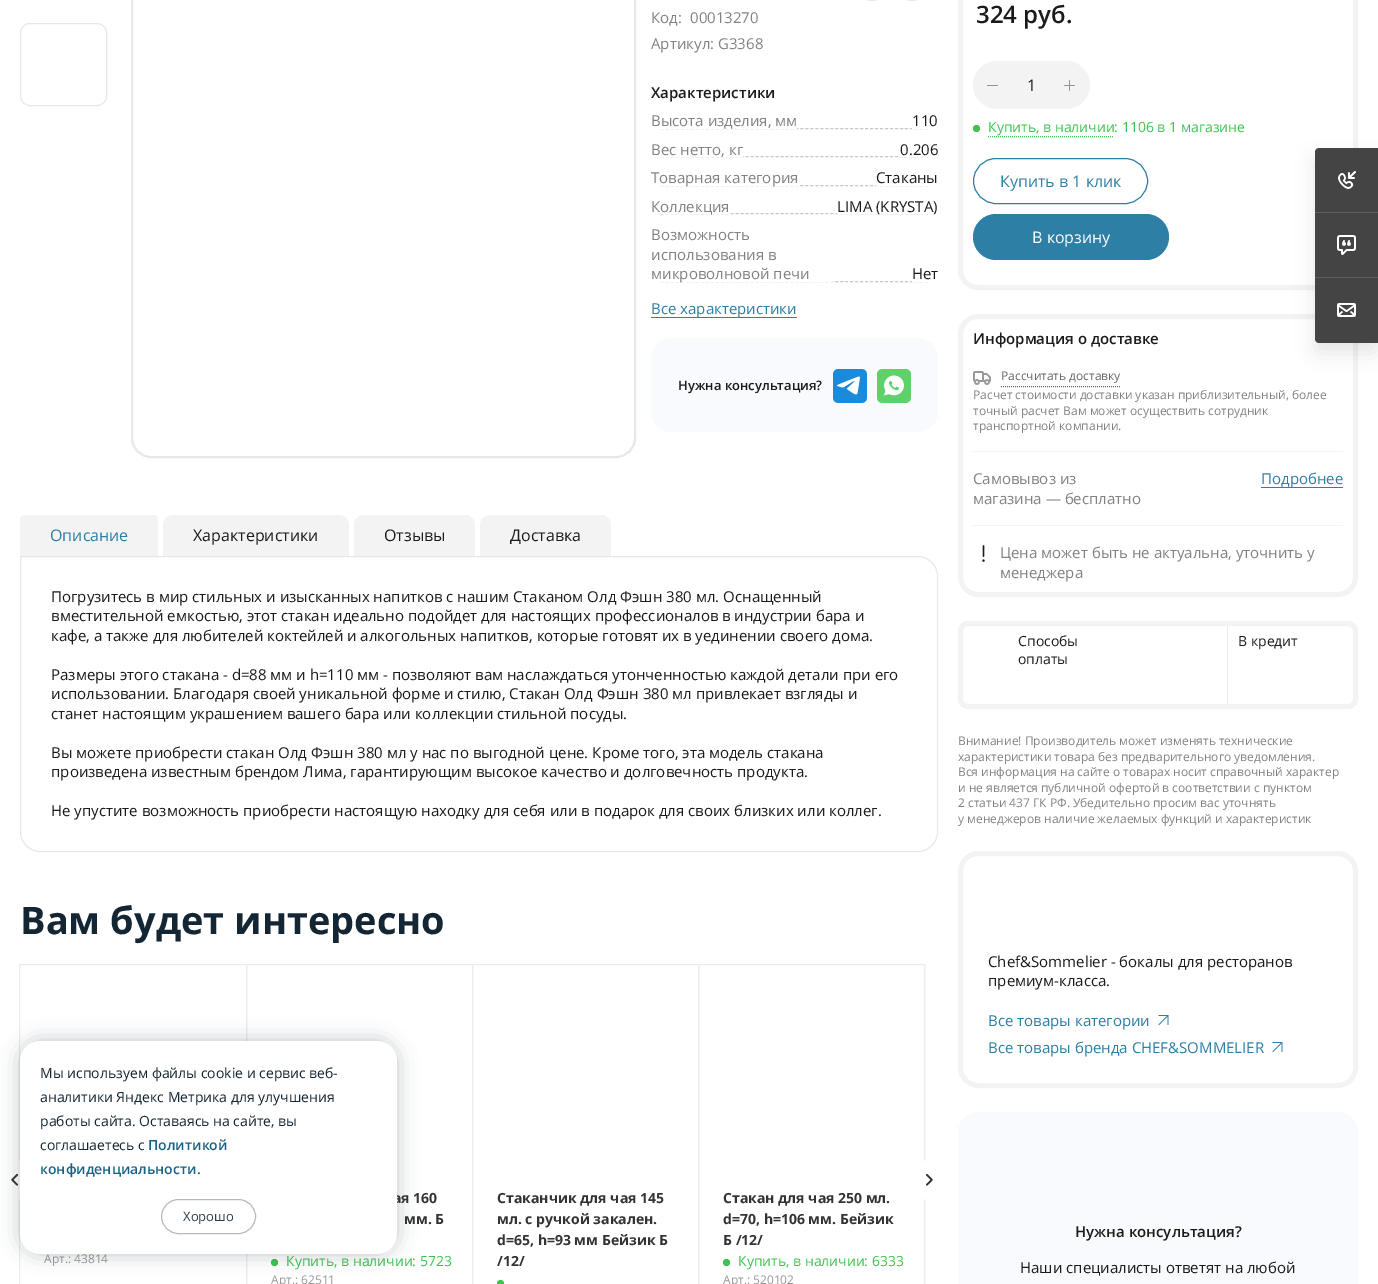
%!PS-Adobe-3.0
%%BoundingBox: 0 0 1378 1284
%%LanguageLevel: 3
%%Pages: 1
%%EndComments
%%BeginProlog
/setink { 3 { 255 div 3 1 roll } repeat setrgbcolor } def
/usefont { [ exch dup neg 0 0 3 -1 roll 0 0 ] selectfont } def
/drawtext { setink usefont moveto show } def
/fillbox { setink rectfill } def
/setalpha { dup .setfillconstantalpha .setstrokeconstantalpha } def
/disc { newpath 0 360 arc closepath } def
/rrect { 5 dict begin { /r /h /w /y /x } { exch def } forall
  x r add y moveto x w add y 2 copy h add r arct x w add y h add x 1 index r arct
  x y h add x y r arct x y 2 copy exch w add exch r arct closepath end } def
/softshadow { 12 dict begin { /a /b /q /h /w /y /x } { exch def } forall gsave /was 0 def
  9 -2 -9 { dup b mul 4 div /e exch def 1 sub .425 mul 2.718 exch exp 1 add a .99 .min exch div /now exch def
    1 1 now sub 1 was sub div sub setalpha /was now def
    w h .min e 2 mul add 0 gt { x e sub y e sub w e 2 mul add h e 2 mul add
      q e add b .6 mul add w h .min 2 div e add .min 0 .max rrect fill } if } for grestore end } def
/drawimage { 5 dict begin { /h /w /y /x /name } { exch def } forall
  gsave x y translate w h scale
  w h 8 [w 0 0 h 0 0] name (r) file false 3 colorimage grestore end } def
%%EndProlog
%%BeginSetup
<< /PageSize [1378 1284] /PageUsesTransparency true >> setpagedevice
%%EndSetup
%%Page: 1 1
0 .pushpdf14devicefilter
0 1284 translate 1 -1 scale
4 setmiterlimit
0 0 1378 1284 255 255 255 fillbox
232 232 232 setink
20.5 23.5 86 82 9.5 rrect stroke
2 setlinewidth
132 -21 503 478 19 rrect stroke
236 236 236 setink
1 setlinewidth
854.5 -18.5 35 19 17.5 rrect stroke
894.5 -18.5 35 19 17.5 rrect stroke
(Код:) 651 23 /OpenSans-Regular 15 130 130 130 drawtext
(00013270) 690 23 /OpenSans-Regular 15 130 130 130 drawtext
(Артикул: G3368) 651 49 /OpenSans-Regular 15 130 130 130 drawtext
(Характеристики) 651 98 /OpenSans-SemiBold 15 27 27 27 drawtext
200 200 200 setink
[3 1.98] 0 setdash
661 128.5 moveto 928 128.5 lineto stroke
661 128 136 1 255 255 255 fillbox
(Высота изделия, мм) 651 126 /OpenSans-Regular 15 130 130 130 drawtext
912 128 16 1 255 255 255 fillbox
(110) 912 126 /OpenSans-Regular 15 27 27 27 drawtext
200 200 200 setink
661 156.5 moveto 928 156.5 lineto stroke
661 156 82 1 255 255 255 fillbox
(Вес нетто, кг) 651 155 /OpenSans-Regular 15 130 130 130 drawtext
900 156 28 1 255 255 255 fillbox
(0.206) 900 155 /OpenSans-Regular 15 27 27 27 drawtext
200 200 200 setink
661 185.5 moveto 928 185.5 lineto stroke
661 185 138 1 255 255 255 fillbox
(Товарная категория) 651 183 /OpenSans-Regular 15 130 130 130 drawtext
876 185 52 1 255 255 255 fillbox
(Стаканы) 876 183 /OpenSans-Regular 15 27 27 27 drawtext
200 200 200 setink
661 213.5 moveto 928 213.5 lineto stroke
661 213 68 1 255 255 255 fillbox
(Коллекция) 651 212 /OpenSans-Regular 15 130 130 130 drawtext
837 213 91 1 255 255 255 fillbox
(LIMA \(KRYSTA\)) 837 212 /OpenSans-Regular 15 27 27 27 drawtext
200 200 200 setink
661 281.5 moveto 928 281.5 lineto stroke
661 281 172 1 255 255 255 fillbox
(Возможность) 651 240 /OpenSans-Regular 15 130 130 130 drawtext
(использования в) 651 260 /OpenSans-Regular 15 130 130 130 drawtext
(микроволновой печи) 651 279 /OpenSans-Regular 15 130 130 130 drawtext
912 281 16 1 255 255 255 fillbox
(Нет) 912 279 /OpenSans-Regular 15 27 27 27 drawtext
651 317 146 1 45 127 166 fillbox
(Все характеристики) 651 314 /OpenSans-Regular 15 45 127 166 drawtext
248 250 253 setink
651 338 287 94 20 rrect fill
(Нужна консультация?) 678 390 /OpenSans-SemiBold 13 27 27 27 drawtext
(assets/img1.rgb) 833 369 34 34 drawimage
(assets/img2.rgb) 877 369 34 34 drawimage
243 243 243 setink
25 515 moveto 153 515 lineto 156 515 158 517 158 520 curveto 158 556 lineto 20 556 lineto 20 520 lineto 20 517 22 515 25 515 curveto closepath fill
(Описание) 50 541 /OpenSans-Regular 16 45 127 166 drawtext
243 243 243 setink
173 515 moveto 339 515 lineto 344.5 515 349 519.5 349 525 curveto 349 556 lineto 163 556 lineto 163 525 lineto 163 519.5 167.5 515 173 515 curveto closepath fill
(Характеристики) 193 541 /OpenSans-Regular 16 27 27 27 drawtext
243 243 243 setink
364 515 moveto 465 515 lineto 470.5 515 475 519.5 475 525 curveto 475 556 lineto 354 556 lineto 354 525 lineto 354 519.5 358.5 515 364 515 curveto closepath fill
(Отзывы) 384 541 /OpenSans-Regular 16 27 27 27 drawtext
243 243 243 setink
490 515 moveto 601 515 lineto 606.5 515 611 519.5 611 525 curveto 611 556 lineto 480 556 lineto 480 525 lineto 480 519.5 484.5 515 490 515 curveto closepath fill
(Доставка) 510 541 /OpenSans-Regular 16 27 27 27 drawtext
232 232 232 setink
[] 0 setdash
20.5 556.5 moveto 918 556.5 lineto 929 556.5 937.5 565 937.5 576 curveto 937.5 832 lineto 937.5 843 929 851.5 918 851.5 curveto 40 851.5 lineto 29 851.5 20.5 843 20.5 832 curveto closepath stroke
(Погрузитесь в мир стильных и изысканных напитков с нашим Стаканом Олд Фэшн 380 мл. Оснащенный) 51 602 /OpenSans-Regular 15 27 27 27 drawtext
(вместительной емкостью, этот стакан идеально подойдет для настоящих профессионалов в индустрии бара и) 51 621 /OpenSans-Regular 15 27 27 27 drawtext
(кафе, а также для любителей коктейлей и алкогольных напитков, которые готовят их в уединении своего дома.) 51 641 /OpenSans-Regular 15 27 27 27 drawtext
(Размеры этого стакана - d=88 мм и h=110 мм - позволяют вам наслаждаться утонченностью каждой детали при его) 51 680 /OpenSans-Regular 15 27 27 27 drawtext
(использовании. Благодаря своей уникальной форме и стилю, Стакан Олд Фэшн 380 мл привлекает взгляды и) 51 699 /OpenSans-Regular 15 27 27 27 drawtext
(станет настоящим украшением вашего бара или коллекции стильной посуды.) 51 719 /OpenSans-Regular 15 27 27 27 drawtext
(Вы можете приобрести стакан Олд Фэшн 380 мл у нас по выгодной цене. Кроме того, эта модель стакана) 51 758 /OpenSans-Regular 15 27 27 27 drawtext
(произведена известным брендом Лима, гарантирующим высокое качество и долговечность продукта.) 51 777 /OpenSans-Regular 15 27 27 27 drawtext
(Не упустите возможность приобрести настоящую находку для себя или в подарок для своих близких или коллег.) 51 816 /OpenSans-Regular 15 27 27 27 drawtext
(Вам будет интересно) 20 934 /OpenSans-Bold 38 20 38 51 drawtext
236 236 236 setink
19.5 964.5 227 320 rectstroke
255 255 255 setink
14 1180 20 disc fill
(assets/img3.rgb) 11 1174 7 12 drawimage
236 236 236 setink
246.5 964.5 226 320 rectstroke
472.5 964.5 226 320 rectstroke
698.5 964.5 226 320 rectstroke
243 243 243 setink
5 setlinewidth
960.5 853.5 395 232 17.5 rrect stroke
(Chef&Sommelier - бокалы для ресторанов) 988 967 /OpenSans-Regular 15 27 27 27 drawtext
(Все товары бренда CHEF&SOMMELIER) 988 1053 /OpenSans-Regular 15 45 127 166 drawtext
248 250 253 setink
958 1112 400 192 20 rrect fill
(Нужна консультация?) 1075 1237 /OpenSans-SemiBold 15 27 27 27 drawtext
(Наши специалисты ответят на любой) 1020 1273 /OpenSans-Regular 15 27 27 27 drawtext
gsave
19 964 907 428 rectclip
236 236 236 setink
1 setlinewidth
924.5 964.5 227 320 rectstroke
grestore
255 255 255 setink
930 1180 20 disc fill
(assets/img4.rgb) 926 1173 7 13 drawimage
(Арт.: 43814) 44 1263 /OpenSans-Regular 12 153 153 153 drawtext
(ая 160) 393 1203 /OpenSans-Bold 14 51 51 51 drawtext
(мм. Б) 404 1224 /OpenSans-Bold 14 51 51 51 drawtext
63 194 79 setink
274.5 1262.5 3.5 disc fill
(Купить, в наличии: 5723) 286 1266 /OpenSans-Regular 14 63 194 79 drawtext
(Арт.: 62511) 271 1284 /OpenSans-Regular 12 153 153 153 drawtext
(Стаканчик для чая 145) 497 1203 /OpenSans-Bold 14 51 51 51 drawtext
(мл. с ручкой закален.) 497 1224 /OpenSans-Bold 14 51 51 51 drawtext
(d=65, h=93 мм Бейзик Б) 497 1245 /OpenSans-Bold 14 51 51 51 drawtext
(/12/) 497 1266 /OpenSans-Bold 14 51 51 51 drawtext
63 194 79 setink
500.5 1283.5 3.5 disc fill
(Стакан для чая 250 мл.) 723 1203 /OpenSans-Bold 14 51 51 51 drawtext
(d=70, h=106 мм. Бейзик) 723 1224 /OpenSans-Bold 14 51 51 51 drawtext
(Б /12/) 723 1245 /OpenSans-Bold 14 51 51 51 drawtext
63 194 79 setink
726.5 1262.5 3.5 disc fill
(Купить, в наличии: 6333) 738 1266 /OpenSans-Regular 14 63 194 79 drawtext
(Арт.: 520102) 723 1284 /OpenSans-Regular 12 153 153 153 drawtext
243 243 243 setink
960.5 -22.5 395 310 17.5 rrect stroke
(324 руб.) 976 23 /OpenSans-SemiBold 24 27 27 27 drawtext
243 243 243 setink
973 61 117 48 24 rrect fill
147 147 147 setink
987 85 11 1 0.5 rrect fill
(1) 1027 91 /OpenSans-Regular 16 27 27 27 drawtext
(assets/img5.rgb) 1064 80 11 11 drawimage
63 194 79 setink
976.5 128.5 3.5 disc fill
(Купить, в наличии: 1106 в 1 магазине) 988 132 /OpenSans-Regular 14 63 194 79 drawtext
1 setlinewidth
[1 1] 0 setdash
988 136.5 moveto 1114 136.5 lineto stroke
45 127 166 setink
[] 0 setdash
973.5 158.5 174 45 22.5 rrect stroke
(Купить в 1 клик) 1000 187 /OpenSans-Regular 16 45 127 166 drawtext
973 214 196 46 23 rrect fill
(В корзину) 1032 243 /OpenSans-Regular 16 255 255 255 drawtext
243 243 243 setink
5 setlinewidth
960.5 316.5 395 278 17.5 rrect stroke
(Информация о доставке) 973 344 /OpenSans-SemiBold 15 27 27 27 drawtext
(assets/img6.rgb) 973 371 18 14 drawimage
102 102 102 setink
1 setlinewidth
[1 1] 0 setdash
1001 386.5 moveto 1121 386.5 lineto stroke
(Рассчитать доставку) 1001 380 /OpenSans-Regular 12 102 102 102 drawtext
973 451 370 1 243 243 243 fillbox
(Расчет стоимости доставки указан приблизительный, более) 973 399 /OpenSans-Regular 12 130 130 130 drawtext
(точный расчет Вам может осуществить сотрудник) 973 415 /OpenSans-Regular 12 130 130 130 drawtext
(транспортной компании.) 973 430 /OpenSans-Regular 12 130 130 130 drawtext
973 525 370 1 243 243 243 fillbox
(Самовывоз из) 973 484 /OpenSans-Regular 15 130 130 130 drawtext
(магазина — бесплатно) 973 504 /OpenSans-Regular 15 130 130 130 drawtext
1261 487 82 1 45 127 166 fillbox
(Подробнее) 1261 484 /OpenSans-Regular 15 45 127 166 drawtext
(assets/img7.rgb) 982 545 3 17 drawimage
(Цена может быть не актуальна, уточнить у) 1000 558 /OpenSans-Regular 15 130 130 130 drawtext
(менеджера) 1000 578 /OpenSans-Regular 15 130 130 130 drawtext
243 243 243 setink
5 setlinewidth
[] 0 setdash
960.5 623.5 395 83 7.5 rrect stroke
(Способы) 1018 646 /OpenSans-Regular 14 27 27 27 drawtext
(оплаты) 1018 664 /OpenSans-Regular 14 27 27 27 drawtext
1227 626 1 78 235 235 235 fillbox
(В кредит) 1238 646 /OpenSans-Regular 14 27 27 27 drawtext
(Внимание! Производитель может изменять технические) 958 745 /OpenSans-Regular 12 130 130 130 drawtext
(характеристики товара без предварительного уведомления.) 958 761 /OpenSans-Regular 12 130 130 130 drawtext
(Вся информация на сайте о товарах носит справочный характер) 958 776 /OpenSans-Regular 12 130 130 130 drawtext
(и не является публичной офертой в соответствии с пунктом) 958 792 /OpenSans-Regular 12 130 130 130 drawtext
(2 статьи 437 ГК РФ. Убедительно просим вас уточнять) 958 807 /OpenSans-Regular 12 130 130 130 drawtext
(у менеджеров наличие желаемых функций и характеристик) 958 823 /OpenSans-Regular 12 130 130 130 drawtext
(премиум-класса.) 988 986 /OpenSans-Regular 15 27 27 27 drawtext
(Все товары категории) 988 1026 /OpenSans-Regular 15 45 127 166 drawtext
(assets/img8.rgb) 1158 1015 11 11 drawimage
(assets/img8.rgb) 1272 1042 11 11 drawimage
0 0 0 setink
1315 158 63 195 4 10 0.1 softshadow
68 68 68 setink
1319 148 moveto 1378 148 lineto 1378 343 lineto 1319 343 lineto 1317 343 1315 341 1315 339 curveto 1315 152 lineto 1315 150 1317 148 1319 148 curveto closepath fill
1315 212 63 1 93 93 93 fillbox
(assets/img9.rgb) 1338 171 18 18 drawimage
1315 277 63 1 93 93 93 fillbox
(assets/img10.rgb) 1337 235 19 20 drawimage
(assets/img11.rgb) 1337 303 19 14 drawimage
44 62 80 setink
20 1041 377 213 20 10 0.31 softshadow
255 255 255 setink
20 1041 377 213 20 rrect fill
(Мы используем файлы cookie и сервис веб-) 40 1078 /OpenSans-Regular 14 20 38 51 drawtext
(аналитики Яндекс Метрика для улучшения) 40 1102 /OpenSans-Regular 14 20 38 51 drawtext
(работы сайта. Оставаясь на сайте, вы) 40 1126 /OpenSans-Regular 14 20 38 51 drawtext
(соглашаетесь с) 40 1150 /OpenSans-Regular 14 20 38 51 drawtext
(Политикой) 148 1150 /OpenSans-SemiBold 14 25 98 133 drawtext
(конфиденциальности.) 40 1174 /OpenSans-SemiBold 14 25 98 133 drawtext
181 187 193 setink
1 setlinewidth
161.5 1199.5 94 34 17 rrect stroke
(Хорошо) 183 1221 /OpenSans-Regular 13 44 62 80 drawtext
.poppdf14devicefilter showpage
%%EOF
